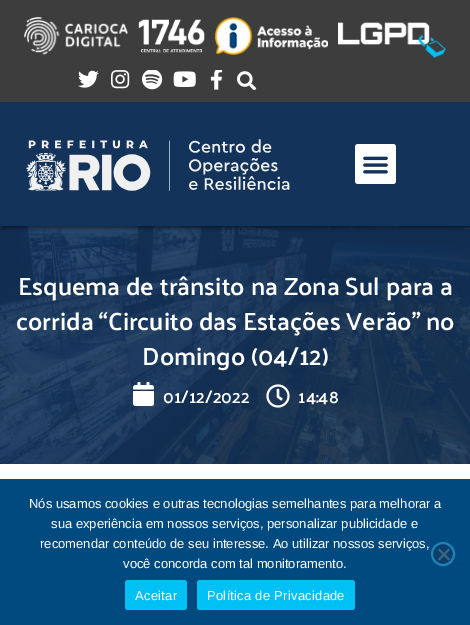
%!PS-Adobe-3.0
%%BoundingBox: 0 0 470 625
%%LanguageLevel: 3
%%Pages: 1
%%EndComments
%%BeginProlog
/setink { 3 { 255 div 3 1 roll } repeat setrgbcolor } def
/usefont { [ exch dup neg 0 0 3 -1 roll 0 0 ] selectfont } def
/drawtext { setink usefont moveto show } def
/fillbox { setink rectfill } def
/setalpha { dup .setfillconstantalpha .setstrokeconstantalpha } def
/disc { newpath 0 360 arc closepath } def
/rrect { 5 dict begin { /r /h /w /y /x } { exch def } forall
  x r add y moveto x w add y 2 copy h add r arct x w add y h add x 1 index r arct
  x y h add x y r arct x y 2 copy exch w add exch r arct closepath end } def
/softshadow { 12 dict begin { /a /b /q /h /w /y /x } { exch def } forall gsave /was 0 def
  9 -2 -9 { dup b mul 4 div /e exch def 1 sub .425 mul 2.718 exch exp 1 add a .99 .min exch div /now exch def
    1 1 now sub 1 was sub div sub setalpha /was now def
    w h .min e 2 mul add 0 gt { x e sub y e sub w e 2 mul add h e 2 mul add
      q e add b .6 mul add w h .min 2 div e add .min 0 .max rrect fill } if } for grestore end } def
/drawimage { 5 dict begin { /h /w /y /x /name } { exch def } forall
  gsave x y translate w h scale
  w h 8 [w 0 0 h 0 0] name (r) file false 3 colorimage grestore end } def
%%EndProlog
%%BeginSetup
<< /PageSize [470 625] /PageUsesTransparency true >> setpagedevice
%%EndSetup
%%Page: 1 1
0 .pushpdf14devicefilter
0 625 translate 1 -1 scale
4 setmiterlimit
0 0 470 625 255 255 255 fillbox
(assets/img13.rgb) 0 226 470 238 drawimage
0 0 0 setink
2 104 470 124 0 2 0.5 softshadow
0 0 470 102 61 61 61 fillbox
(assets/img1.rgb) 24 17 104 38 drawimage
(assets/img2.rgb) 138 19 67 34 drawimage
(assets/img3.rgb) 215 17 113 38 drawimage
(assets/img4.rgb) 338 22 108 36 drawimage
(assets/img5.rgb) 78 70 21 18 drawimage
(assets/img6.rgb) 111 70 19 19 drawimage
(assets/img7.rgb) 142 70 21 20 drawimage
(assets/img8.rgb) 173 71 23 16 drawimage
(assets/img9.rgb) 210 70 13 20 drawimage
(assets/img10.rgb) 237 71 20 19 drawimage
0 102 470 124 19 51 90 fillbox
(assets/img11.rgb) 26 139 264 52 drawimage
255 255 255 setink
355 144 41 40 3 rrect fill
(assets/img12.rgb) 363 156 25 18 drawimage
(Esquema de trânsito na Zona Sul para a) 18 295 /Palanquin-SemiBold 25 255 255 255 drawtext
(corrida “Circuito das Estações Verão” no) 16 330 /Palanquin-SemiBold 25 255 255 255 drawtext
(Domingo \(04/12\)) 142 365 /Palanquin-SemiBold 25 255 255 255 drawtext
(assets/img14.rgb) 133 382 21 24 drawimage
(01/12/2022) 163 403 /Palanquin-SemiBold 17.5 255 255 255 drawtext
(assets/img15.rgb) 266 384 24 24 drawimage
(14:48) 298 403 /Palanquin-SemiBold 17.5 255 255 255 drawtext
0 479 470 146 0 74 128 fillbox
(Nós usamos cookies e outras tecnologias semelhantes para melhorar a) 29 508 /LiberationSans-Regular 13 255 255 255 drawtext
(sua experiência em nossos serviços, personalizar publicidade e) 51 528 /LiberationSans-Regular 13 255 255 255 drawtext
(recomendar conteúdo de seu interesse. Ao utilizar nossos serviços,) 40 548 /LiberationSans-Regular 13 255 255 255 drawtext
(você concorda com tal monitoramento.) 123 568 /LiberationSans-Regular 13 255 255 255 drawtext
10 63 109 setink
443 554 11 disc gsave fill grestore
33 130 182 setink
2 setlinewidth
stroke
64 101 128 setink
448.5 548.5 moveto 450 550 lineto 439.5 560.5 lineto 438 559 lineto closepath fill
438 550 moveto 439.5 548.5 lineto 450 559 lineto 448.5 560.5 lineto closepath fill
0 192 244 setink
125 580 62 30 3 rrect fill
255 255 255 setink
135 600 moveto 0.25 0 (Aceitar) ashow
0 192 244 setink
197 580 158 30 3 rrect fill
255 255 255 setink
207 600 moveto 0.25 0 (Política de Privacidade) ashow
.poppdf14devicefilter showpage
%%EOF
